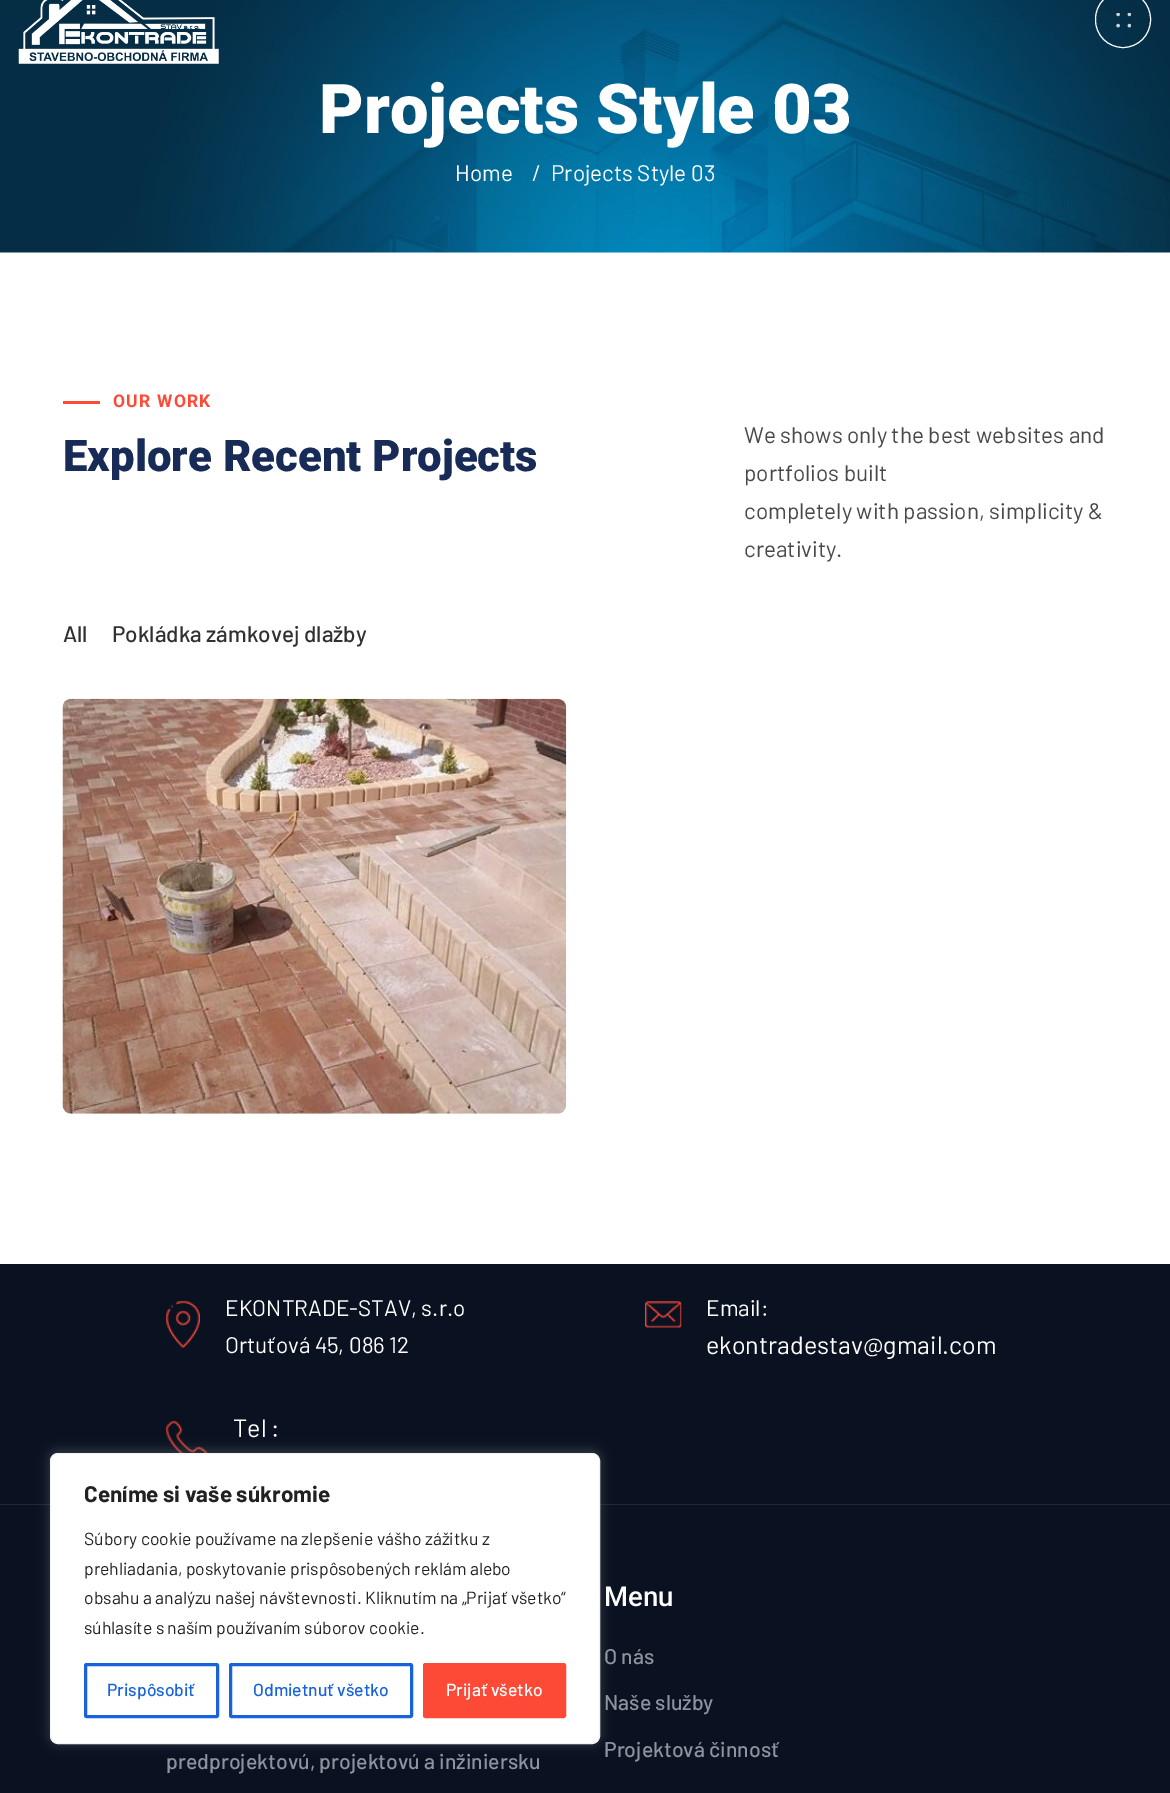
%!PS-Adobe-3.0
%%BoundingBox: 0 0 1170 1793
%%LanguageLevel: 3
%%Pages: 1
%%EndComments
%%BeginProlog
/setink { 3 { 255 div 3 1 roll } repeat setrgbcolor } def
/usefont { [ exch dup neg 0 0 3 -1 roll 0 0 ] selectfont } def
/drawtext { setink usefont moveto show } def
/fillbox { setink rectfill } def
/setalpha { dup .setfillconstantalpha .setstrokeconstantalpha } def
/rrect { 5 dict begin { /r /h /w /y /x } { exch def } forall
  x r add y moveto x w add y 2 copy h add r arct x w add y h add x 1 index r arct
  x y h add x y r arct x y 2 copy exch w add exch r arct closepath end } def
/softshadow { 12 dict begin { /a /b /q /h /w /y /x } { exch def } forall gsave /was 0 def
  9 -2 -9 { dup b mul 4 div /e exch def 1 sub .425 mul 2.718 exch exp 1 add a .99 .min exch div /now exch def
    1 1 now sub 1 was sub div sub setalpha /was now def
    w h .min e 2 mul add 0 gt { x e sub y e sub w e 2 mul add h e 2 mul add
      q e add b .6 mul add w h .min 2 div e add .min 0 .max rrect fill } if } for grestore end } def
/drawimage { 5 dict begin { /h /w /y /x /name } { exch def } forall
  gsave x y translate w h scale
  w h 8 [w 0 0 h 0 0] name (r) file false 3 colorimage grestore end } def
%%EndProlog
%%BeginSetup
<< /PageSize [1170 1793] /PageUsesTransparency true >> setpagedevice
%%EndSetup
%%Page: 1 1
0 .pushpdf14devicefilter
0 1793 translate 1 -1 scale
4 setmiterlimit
0 0 1170 1793 255 255 255 fillbox
(assets/img3.rgb) 0 0 1170 253 drawimage
(assets/img1.rgb) 18 0 201 64 drawimage
1095.5 -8.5 55 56 27.5 rrect stroke
(assets/img2.rgb) 1116 13 15 15 drawimage
(Projects Style 03) 319 133 /Roboto-Black 68.75 255 255 255 drawtext
(Home) 455 181 /Barlow-Regular 22.5 255 255 255 drawtext
(/) 532 181 /Barlow-Regular 22.5 255 255 255 drawtext
(Projects Style 03) 551 181 /Barlow-Regular 22.5 255 255 255 drawtext
63 401 37 3 253 74 54 fillbox
/Roboto-Bold 17.5 usefont
113 407 moveto 1.25 0 (OUR WORK) ashow
(Explore Recent Projects) 63 471 /Roboto-Black 43.75 23 43 86 drawtext
(We shows only the best websites and) 744 443 /Barlow-Regular 22.5 73 73 73 drawtext
(portfolios built) 744 481 /Barlow-Regular 22.5 73 73 73 drawtext
(completely with passion, simplicity &) 744 519 /Barlow-Regular 22.5 73 73 73 drawtext
(creativity.) 744 557 /Barlow-Regular 22.5 73 73 73 drawtext
(All) 63 642 /Barlow-Medium 22.5 48 48 48 drawtext
(Pokládka zámkovej dlažby) 112 642 /Barlow-Medium 22.5 48 48 48 drawtext
(assets/img4.rgb) 62 698 505 416 drawimage
0 1264 1170 240 10 18 34 fillbox
(assets/img5.rgb) 166 1301 34 47 drawimage
(EKONTRADE-STAV, s.r.o) 225 1316 /Barlow-Regular 22.5 255 255 255 drawtext
(Ortuťová 45, 086 12) 225 1353 /Barlow-Regular 22.5 255 255 255 drawtext
(assets/img6.rgb) 645 1301 37 27 drawimage
(Email:) 706 1316 /Barlow-Regular 22.5 255 255 255 drawtext
(ekontradestav@gmail.com) 706 1354 /Barlow-Regular 25 255 255 255 drawtext
(assets/img7.rgb) 166 1421 42 32 drawimage
(Tel :) 233 1437 /Barlow-Regular 25 255 255 255 drawtext
0 1504 1170 1 31 39 57 fillbox
0 1505 1170 288 10 18 34 fillbox
(predprojektovú, projektovú a inžiniersku) 166 1769 /Barlow-Medium 21.25 142 147 159 drawtext
(Menu) 604 1606 /Roboto-Medium 27.5 255 255 255 drawtext
(O nás) 604 1664 /Barlow-Medium 21.25 142 147 159 drawtext
(Naše služby) 604 1710 /Barlow-Medium 21.25 142 147 159 drawtext
(Projektová činnosť) 604 1757 /Barlow-Medium 21.25 142 147 159 drawtext
172 171 171 setink
50 1451 550 292 8 6 0.3 softshadow
255 255 255 setink
50.5 1453.5 549 290 7.5 rrect gsave fill grestore
244 244 244 setink
stroke
(Ceníme si vaše súkromie) 84 1502 /Barlow-Bold 22.5 33 33 33 drawtext
(Súbory cookie používame na zlepšenie vášho zážitku z) 84 1545 /Barlow-Regular 17.5 33 33 33 drawtext
(prehliadania, poskytovanie prispôsobených reklám alebo) 84 1575 /Barlow-Regular 17.5 33 33 33 drawtext
(obsahu a analýzu našej návštevnosti. Kliknutím na „Prijať všetko“) 84 1604 /Barlow-Regular 17.5 33 33 33 drawtext
(súhlasíte s naším používaním súborov cookie.) 84 1634 /Barlow-Regular 17.5 33 33 33 drawtext
24 99 220 setink
3 setlinewidth
85.5 1664.5 132 52 1 rrect stroke
(Prispôsobiť) 107 1696 /Barlow-Medium 17.5 24 99 220 drawtext
230.5 1664.5 181 52 1 rrect stroke
(Odmietnuť všetko) 253 1696 /Barlow-Medium 17.5 24 99 220 drawtext
253 74 54 setink
424.5 1664.5 140 52 1 rrect gsave fill grestore
stroke
(Prijať všetko) 446 1696 /Barlow-Medium 17.5 255 255 255 drawtext
.poppdf14devicefilter showpage
%%EOF
